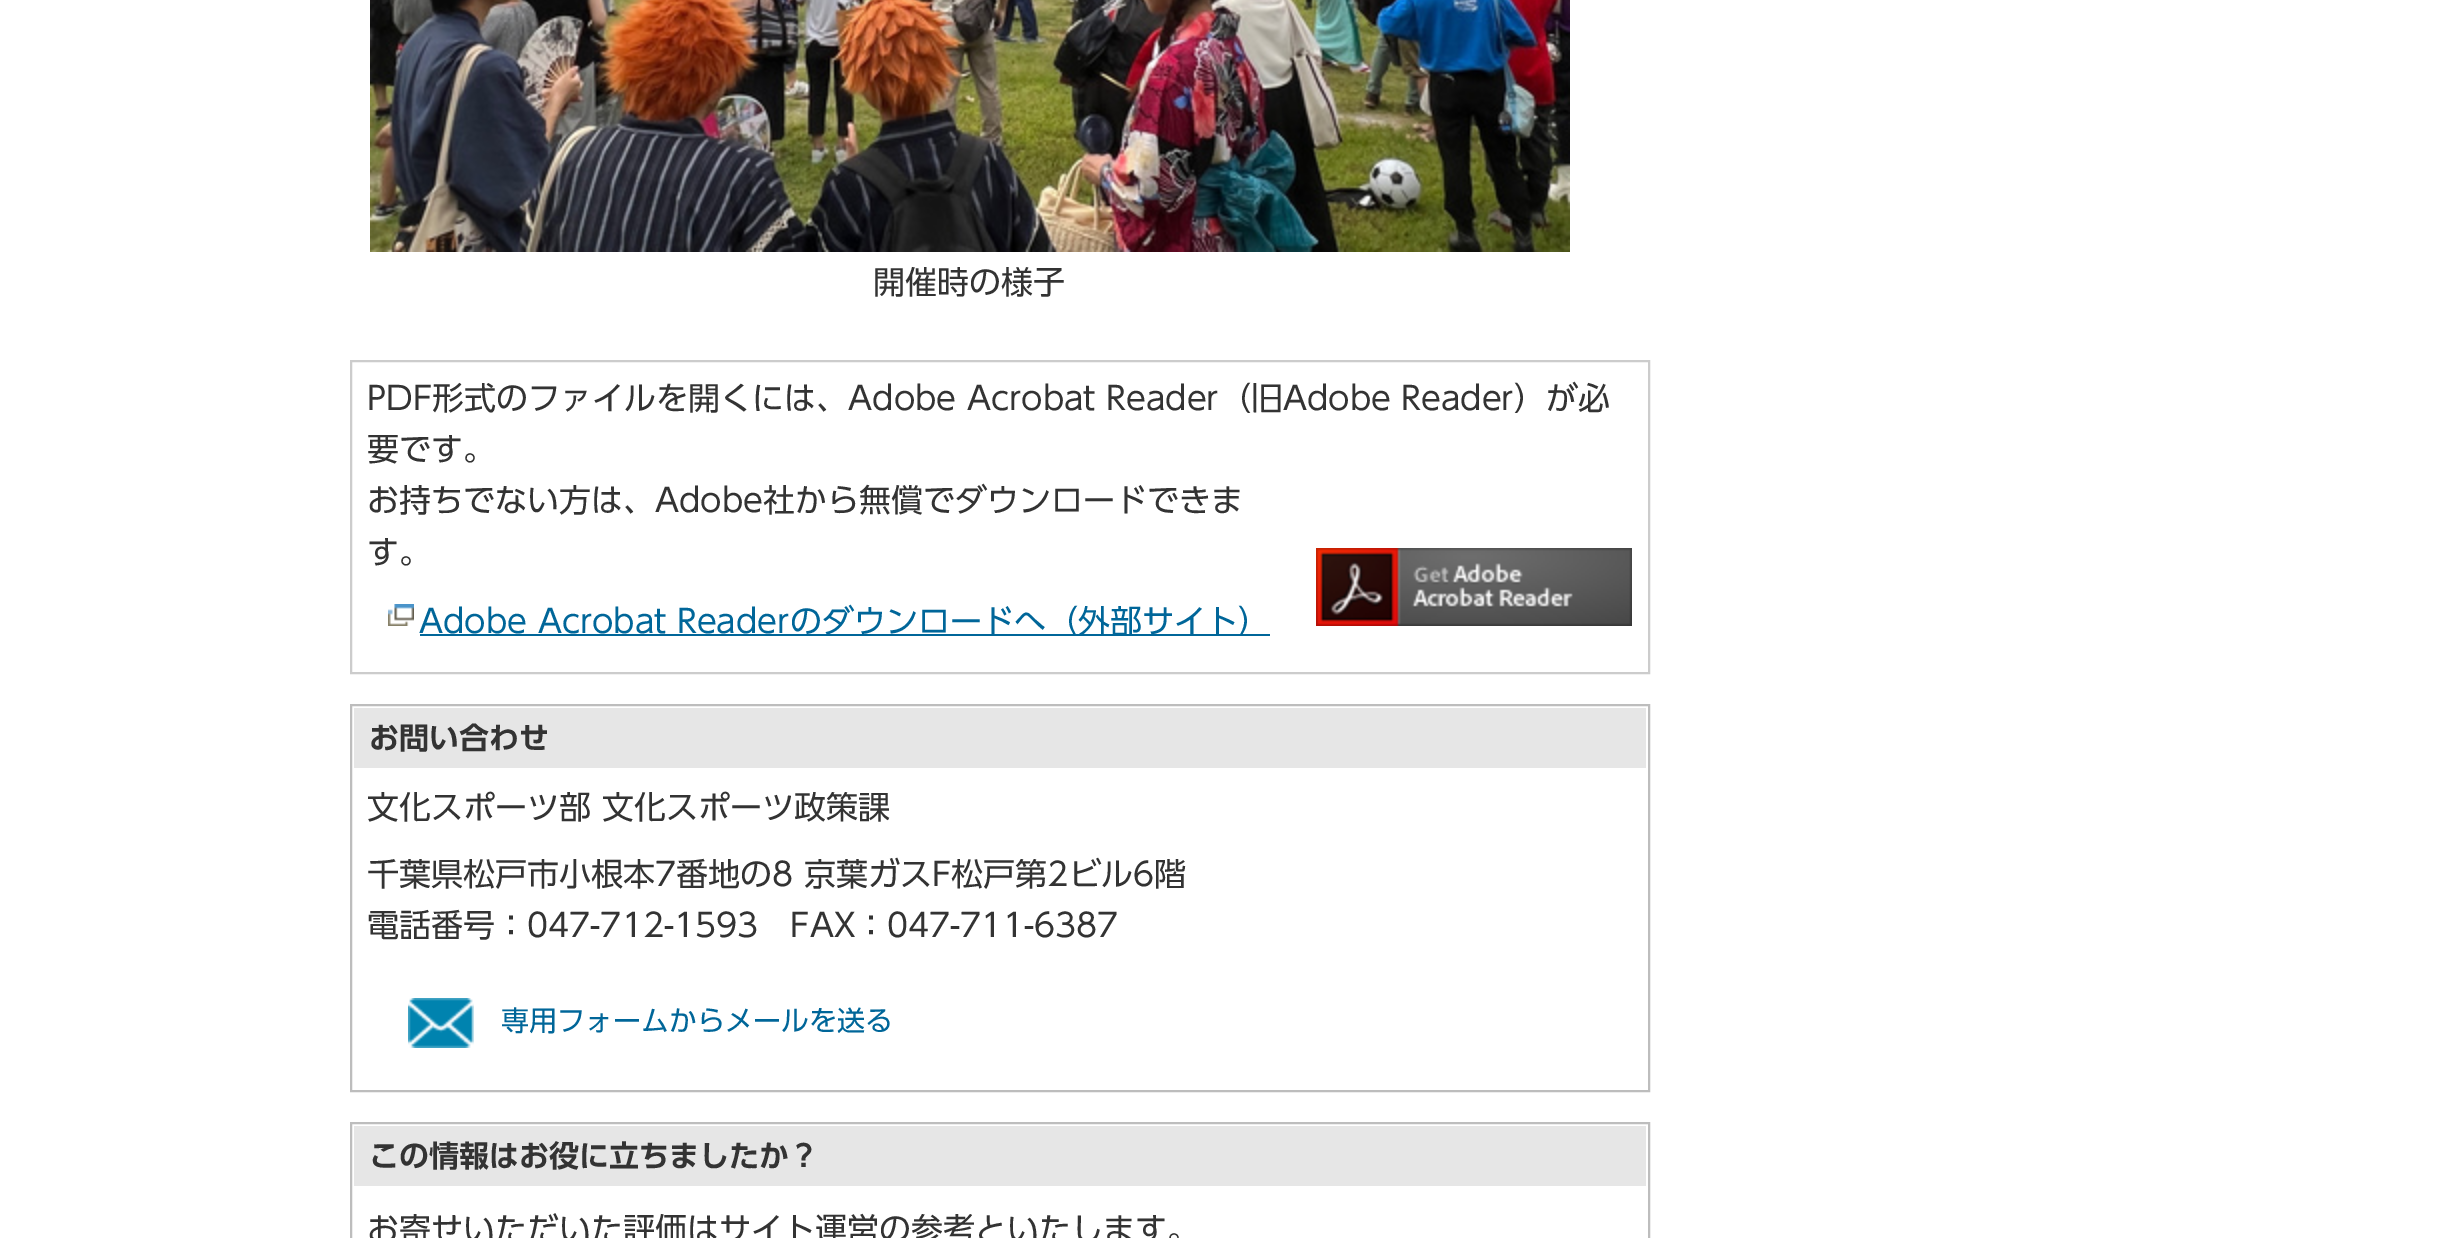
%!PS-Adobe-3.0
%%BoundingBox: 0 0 2457 1238
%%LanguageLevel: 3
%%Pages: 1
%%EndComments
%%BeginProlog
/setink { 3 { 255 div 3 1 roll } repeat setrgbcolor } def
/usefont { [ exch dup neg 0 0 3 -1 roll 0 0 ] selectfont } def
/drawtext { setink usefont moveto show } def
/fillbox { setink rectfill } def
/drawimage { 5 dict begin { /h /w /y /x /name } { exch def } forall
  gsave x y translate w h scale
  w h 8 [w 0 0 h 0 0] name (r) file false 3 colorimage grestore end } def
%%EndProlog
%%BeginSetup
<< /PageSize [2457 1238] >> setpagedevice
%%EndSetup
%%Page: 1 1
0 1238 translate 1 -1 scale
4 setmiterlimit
0 0 2457 1238 255 255 255 fillbox
(assets/img1.rgb) 370 0 1200 252 drawimage
(開催時の様子) 873 294 /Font-Regular 32 51 51 51 drawtext
204 204 204 setink
2 setlinewidth
351 361 1298 312 rectstroke
(PDF形式のファイルを開くには、Adobe Acrobat Reader（旧Adobe Reader）が必) 367 410 /Font-Regular 32 51 51 51 drawtext
(要です。) 367 461 /Font-Regular 32 51 51 51 drawtext
(お持ちでない方は、Adobe社から無償でダウンロードできま) 367 512 /Font-Regular 32 51 51 51 drawtext
(す。) 367 564 /Font-Regular 32 51 51 51 drawtext
(assets/img2.rgb) 388 604 26 22 drawimage
420 634 850 2 0 102 153 fillbox
(Adobe Acrobat Readerのダウンロードへ（外部サイト）) 419 633 /Font-Regular 32 0 102 153 drawtext
(assets/img3.rgb) 1316 548 316 78 drawimage
189 189 189 setink
351 705 1298 386 rectstroke
354 708 1292 60 230 230 230 fillbox
(お問い合わせ) 369 749 /Font-SemiBold 30 51 51 51 drawtext
(文化スポーツ部 文化スポーツ政策課) 367 819 /Font-Regular 32 51 51 51 drawtext
(千葉県松戸市小根本7番地の8 京葉ガスF松戸第2ビル6階) 367 886 /Font-Regular 32 51 51 51 drawtext
(電話番号：047-712-1593) 367 937 /Font-Regular 32 51 51 51 drawtext
(FAX：047-711-6387) 790 937 /Font-Regular 32 51 51 51 drawtext
(assets/img4.rgb) 408 998 66 50 drawimage
(専用フォームからメールを送る) 501 1031 /Font-Regular 28 0 102 153 drawtext
189 189 189 setink
351 1123 1298 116 rectstroke
354 1126 1292 60 230 230 230 fillbox
(この情報はお役に立ちましたか？) 369 1167 /Font-SemiBold 30 51 51 51 drawtext
(お寄せいただいた評価はサイト運営の参考といたします。) 367 1241 /Font-Regular 32 51 51 51 drawtext
showpage
%%EOF
